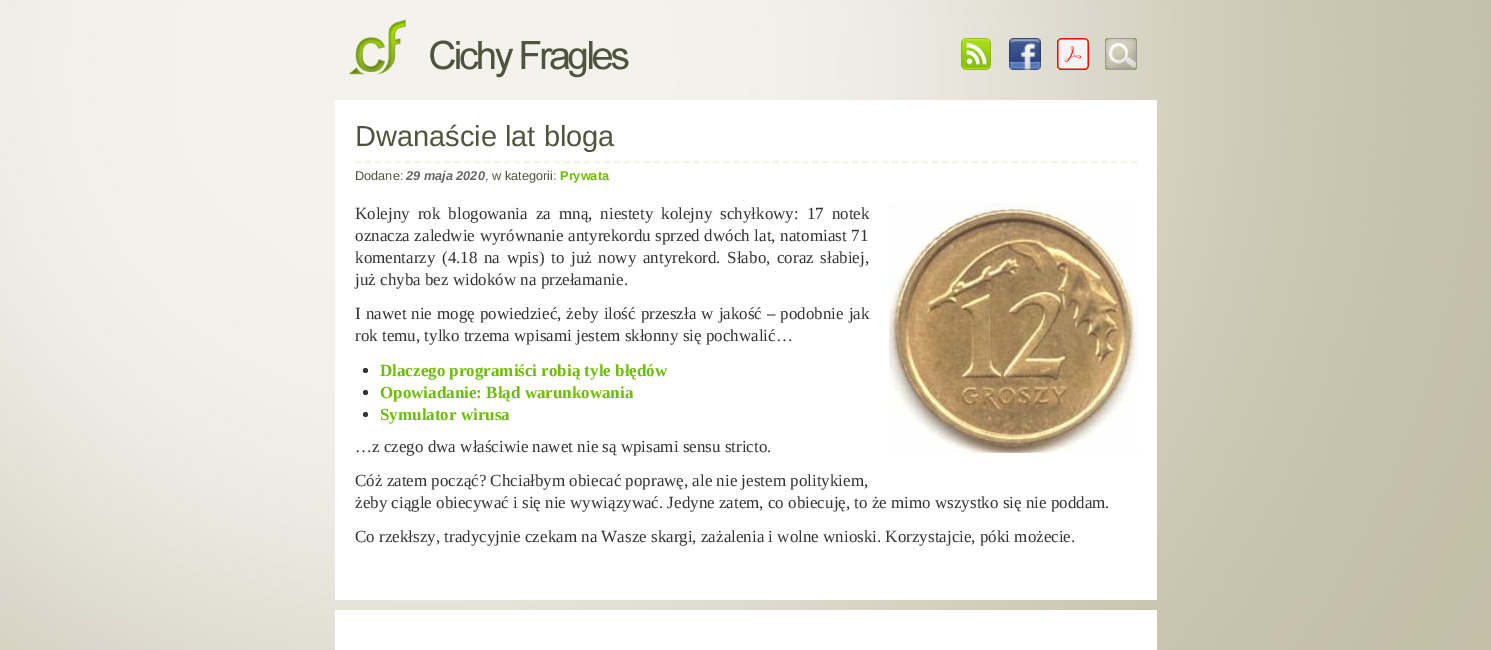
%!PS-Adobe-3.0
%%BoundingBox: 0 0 1491 650
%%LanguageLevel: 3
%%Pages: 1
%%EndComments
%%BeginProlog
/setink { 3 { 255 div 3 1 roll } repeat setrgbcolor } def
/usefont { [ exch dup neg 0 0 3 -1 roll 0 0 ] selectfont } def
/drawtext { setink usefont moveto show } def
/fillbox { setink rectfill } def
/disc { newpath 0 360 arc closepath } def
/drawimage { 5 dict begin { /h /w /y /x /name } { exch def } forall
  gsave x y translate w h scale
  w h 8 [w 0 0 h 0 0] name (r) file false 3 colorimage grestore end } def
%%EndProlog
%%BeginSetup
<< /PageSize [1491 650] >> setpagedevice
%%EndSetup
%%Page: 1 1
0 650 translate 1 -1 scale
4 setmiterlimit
0 0 1491 650 255 255 255 fillbox
(assets/img1.rgb) 0 0 1491 650 drawimage
(assets/img2.rgb) 349 19 57 56 drawimage
(assets/img3.rgb) 430 40 199 38 drawimage
(assets/img4.rgb) 961 38 30 32 drawimage
(assets/img5.rgb) 1009 38 32 32 drawimage
(assets/img6.rgb) 1057 38 32 32 drawimage
(assets/img7.rgb) 1105 38 32 32 drawimage
335 100 822 500 255 255 255 fillbox
245 243 231 setink
2 setlinewidth
[6 3.95] 0 setdash
355 162 moveto 1137 162 lineto stroke
(Dwanaście lat bloga) 355 146 /LiberationSans-Regular 29 79 84 62 drawtext
(Dodane:) 355 180 /LiberationSans-Regular 12.75 79 84 62 drawtext
(29 maja 2020) 406 180 /LiberationSans-BoldItalic 12.75 102 102 102 drawtext
(, w kategorii:) 485 180 /LiberationSans-Regular 12.75 79 84 62 drawtext
(Prywata) 560 180 /LiberationSans-Bold 12.75 109 190 0 drawtext
/LiberationSerif-Regular 17 usefont
51 51 51 setink
355 219 moveto 3.75 0 32 (Kolejny rok blogowania za mną, niestety kolejny schyłkowy: 17 notek) widthshow
355 241 moveto 0.5 0 32 (oznacza zaledwie wyrównanie antyrekordu sprzed dwóch lat, natomiast 71) widthshow
355 263 moveto 2.4 0 32 (komentarzy \(4.18 na wpis\) to już nowy antyrekord. Słabo, coraz słabiej,) widthshow
(już chyba bez widoków na przełamanie.) 355 285 /LiberationSerif-Regular 17 51 51 51 drawtext
(assets/img8.rgb) 889 203 248 250 drawimage
355 319 moveto 0.75 0 32 (I nawet nie mogę powiedzieć, żeby ilość przeszła w jakość – podobnie jak) widthshow
(rok temu, tylko trzema wpisami jestem skłonny się pochwalić…) 355 341 /LiberationSerif-Regular 17 51 51 51 drawtext
365.5 370.5 2.5 disc fill
(Dlaczego programiści robią tyle błędów) 380 376 /LiberationSerif-Bold 17 109 190 0 drawtext
51 51 51 setink
365.5 392.5 2.5 disc fill
(Opowiadanie: Błąd warunkowania) 380 398 /LiberationSerif-Bold 17 109 190 0 drawtext
51 51 51 setink
365.5 414.5 2.5 disc fill
(Symulator wirusa) 380 420 /LiberationSerif-Bold 17 109 190 0 drawtext
(…z czego dwa właściwie nawet nie są wpisami sensu stricto.) 355 452 /LiberationSerif-Regular 17 51 51 51 drawtext
(Cóż zatem począć? Chciałbym obiecać poprawę, ale nie jestem politykiem,) 355 486 /LiberationSerif-Regular 17 51 51 51 drawtext
(żeby ciągle obiecywać i się nie wywiązywać. Jedyne zatem, co obiecuję, to że mimo wszystko się nie poddam.) 355 508 /LiberationSerif-Regular 17 51 51 51 drawtext
(Co rzekłszy, tradycyjnie czekam na Wasze skargi, zażalenia i wolne wnioski. Korzystajcie, póki możecie.) 355 542 /LiberationSerif-Regular 17 51 51 51 drawtext
335 610 822 40 255 255 255 fillbox
showpage
%%EOF
